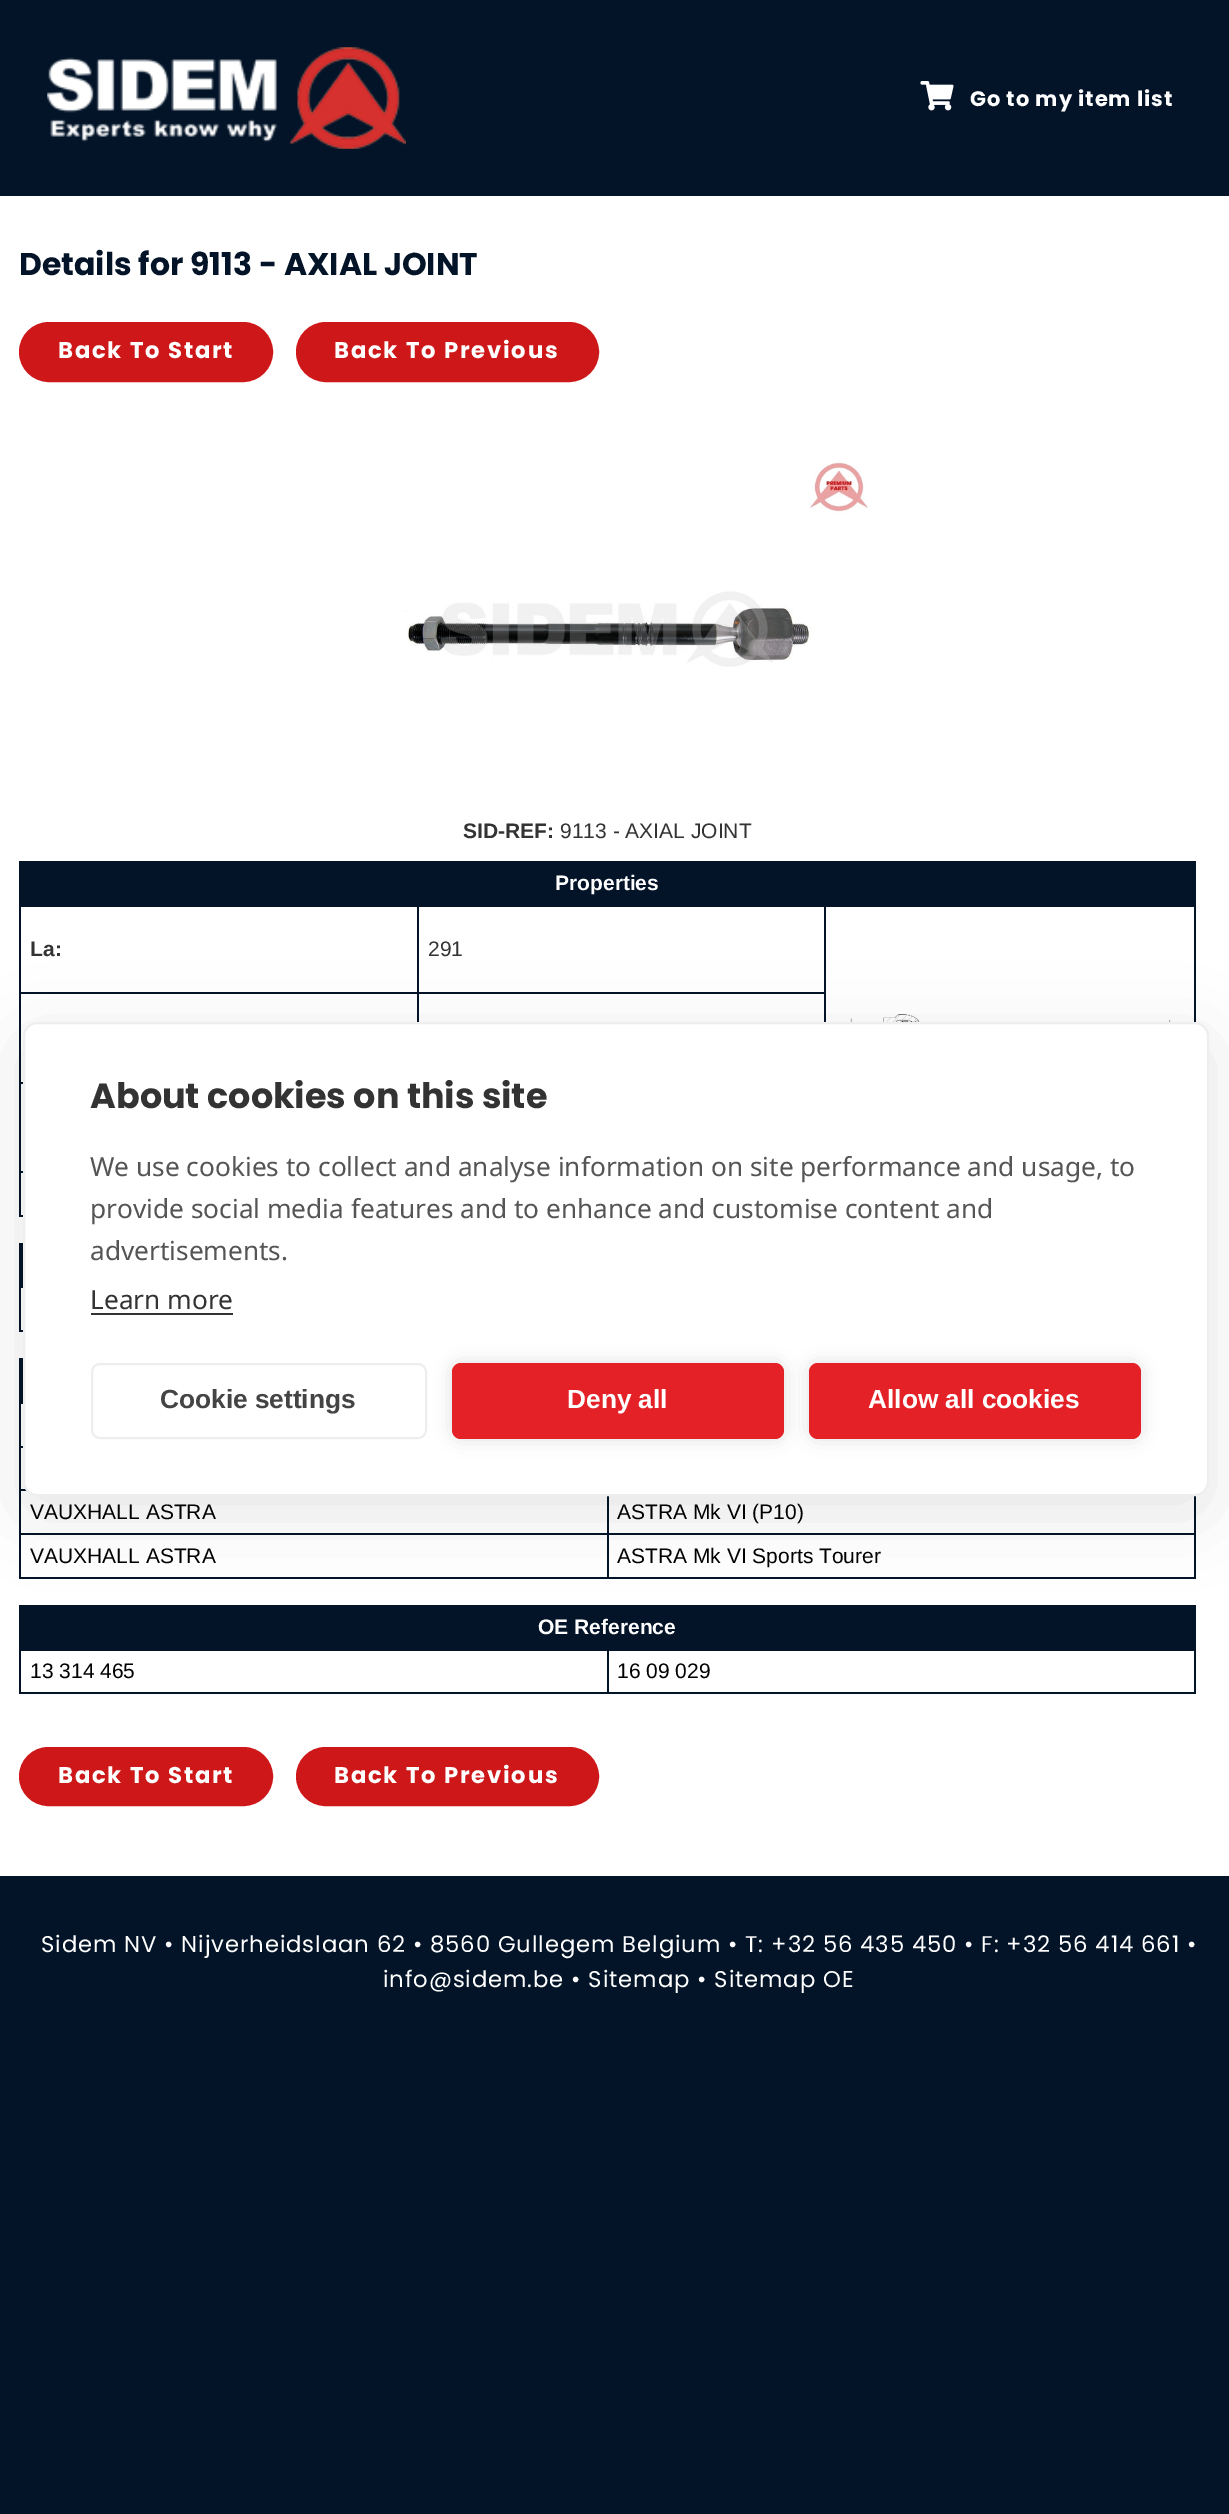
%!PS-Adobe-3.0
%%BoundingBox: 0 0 1229 2514
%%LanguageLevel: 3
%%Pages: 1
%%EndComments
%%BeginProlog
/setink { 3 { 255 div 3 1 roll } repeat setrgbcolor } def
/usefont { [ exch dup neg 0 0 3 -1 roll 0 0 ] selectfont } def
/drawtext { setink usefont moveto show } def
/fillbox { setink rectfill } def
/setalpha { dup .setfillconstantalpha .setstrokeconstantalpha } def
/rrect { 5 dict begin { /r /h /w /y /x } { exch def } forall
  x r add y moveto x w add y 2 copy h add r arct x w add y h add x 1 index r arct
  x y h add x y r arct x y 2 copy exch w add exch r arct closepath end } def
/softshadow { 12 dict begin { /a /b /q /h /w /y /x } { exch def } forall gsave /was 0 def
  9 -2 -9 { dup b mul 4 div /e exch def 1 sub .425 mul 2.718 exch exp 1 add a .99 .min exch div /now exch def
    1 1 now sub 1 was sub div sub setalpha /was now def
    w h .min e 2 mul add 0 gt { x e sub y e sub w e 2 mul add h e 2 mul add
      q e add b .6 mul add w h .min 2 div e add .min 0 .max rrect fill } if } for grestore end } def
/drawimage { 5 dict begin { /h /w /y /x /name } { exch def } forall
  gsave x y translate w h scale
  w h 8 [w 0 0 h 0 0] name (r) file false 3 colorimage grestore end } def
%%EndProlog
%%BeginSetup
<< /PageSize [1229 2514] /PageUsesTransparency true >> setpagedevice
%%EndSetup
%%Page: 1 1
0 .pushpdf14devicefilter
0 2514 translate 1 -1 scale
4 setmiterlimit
0 0 1229 2514 3 20 40 fillbox
(assets/img1.rgb) 47 47 359 102 drawimage
(assets/img2.rgb) 920 81 34 30 drawimage
/Poppins-Bold 21 usefont
255 255 255 setink
970 106 moveto 0.88 0 (Go to my item list) ashow
0 196 1229 1680 255 255 255 fillbox
(Details for 9113 - AXIAL JOINT) 19 275 /Poppins-Bold 31.5 3 20 40 drawtext
205 23 25 setink
21 324 250 56 28 rrect gsave fill grestore
4 setlinewidth
stroke
/Poppins-Bold 22.75 usefont
255 255 255 setink
58 358 moveto 1.75 0 (Back To Start) ashow
205 23 25 setink
298 324 299 56 28 rrect gsave fill grestore
stroke
255 255 255 setink
334 358 moveto 1.75 0 (Back To Previous) ashow
(assets/img3.rgb) 404 462 464 205 drawimage
(SID-REF:) 463 838 /LiberationSans-Bold 21 51 51 51 drawtext
(9113 - AXIAL JOINT) 560 838 /LiberationSans-Regular 21 51 51 51 drawtext
19 861 1176 2 3 20 40 fillbox
1194 861 2 162 3 20 40 fillbox
19 1215 4 2 3 20 40 fillbox
19 861 2 355 3 20 40 fillbox
21 863 1173 42 3 20 40 fillbox
(Properties) 555 890 /LiberationSans-Bold 21 255 255 255 drawtext
824 905 371 2 3 20 40 fillbox
417 992 409 2 3 20 40 fillbox
824 905 2 117 3 20 40 fillbox
417 905 409 2 3 20 40 fillbox
417 992 2 30 3 20 40 fillbox
19 992 399 2 3 20 40 fillbox
417 905 2 89 3 20 40 fillbox
19 905 399 2 3 20 40 fillbox
(La:) 30 956 /LiberationSans-Bold 21 51 51 51 drawtext
(291) 428 956 /LiberationSans-Regular 21 51 51 51 drawtext
(assets/img4.rgb) 841 1014 333 8 drawimage
19 1082 4 2 3 20 40 fillbox
19 1171 4 2 3 20 40 fillbox
19 1243 4 2 3 20 40 fillbox
19 1330 4 2 3 20 40 fillbox
19 1243 2 89 3 20 40 fillbox
21 1245 2 41 3 20 40 fillbox
19 1286 4 2 3 20 40 fillbox
19 1358 4 2 3 20 40 fillbox
1194 1495 2 84 3 20 40 fillbox
19 1577 1176 2 3 20 40 fillbox
19 1358 2 221 3 20 40 fillbox
21 1360 2 42 3 20 40 fillbox
19 1402 4 2 3 20 40 fillbox
19 1446 4 2 3 20 40 fillbox
19 1489 8 2 3 20 40 fillbox
(VAUXHALL ASTRA) 30 1519 /LiberationSans-Regular 21 0 0 0 drawtext
607 1533 588 2 3 20 40 fillbox
607 1533 2 46 3 20 40 fillbox
19 1533 590 2 3 20 40 fillbox
607 1489 2 46 3 20 40 fillbox
(ASTRA Mk VI \(P10\)) 617 1519 /LiberationSans-Regular 21 0 0 0 drawtext
(VAUXHALL ASTRA) 30 1563 /LiberationSans-Regular 21 0 0 0 drawtext
(ASTRA Mk VI Sports Tourer) 617 1563 /LiberationSans-Regular 21 0 0 0 drawtext
19 1605 1176 2 3 20 40 fillbox
1194 1605 2 89 3 20 40 fillbox
19 1692 1176 2 3 20 40 fillbox
19 1605 2 89 3 20 40 fillbox
21 1607 1173 42 3 20 40 fillbox
(OE Reference) 538 1634 /LiberationSans-Bold 21 255 255 255 drawtext
607 1649 588 2 3 20 40 fillbox
607 1649 2 45 3 20 40 fillbox
19 1649 590 2 3 20 40 fillbox
(13 314 465) 30 1678 /LiberationSans-Regular 21 0 0 0 drawtext
(16 09 029) 617 1678 /LiberationSans-Regular 21 0 0 0 drawtext
205 23 25 setink
21 1749 250 55 27.5 rrect gsave fill grestore
stroke
/Poppins-Bold 22.75 usefont
255 255 255 setink
58 1783 moveto 1.75 0 (Back To Start) ashow
205 23 25 setink
298 1749 299 55 27.5 rrect gsave fill grestore
stroke
255 255 255 setink
334 1783 moveto 1.75 0 (Back To Previous) ashow
/Poppins-Regular 22.75 usefont
41 1952 moveto 0.88 0 (Sidem NV • Nijverheidslaan 62 • 8560 Gullegem Belgium • T: +32 56 435 450 • F: +32 56 414 661 •) ashow
383 1987 moveto 0.88 0 (info@sidem.be • Sitemap • Sitemap OE) ashow
0 0 0 setink
23 1040 1186 474 14 35 0.1 softshadow
255 255 255 setink
24 1023 1184 472 13 rrect gsave fill grestore
238 238 238 setink
2 setlinewidth
stroke
(About cookies on this site) 90 1108 /Poppins-Bold 35 51 51 51 drawtext
(We use cookies to collect and analyse information on site performance and usage, to) 90 1176 /NotoSans-Regular 26.25 85 85 85 drawtext
(provide social media features and to enhance and customise content and) 90 1218 /NotoSans-Regular 26.25 85 85 85 drawtext
(advertisements.) 90 1260 /NotoSans-Regular 26.25 85 85 85 drawtext
(Learn more) 90 1309 /NotoSans-Regular 26.25 51 51 51 drawtext
91 1313 142 2 51 51 51 fillbox
238 238 238 setink
92 1364 334 74 8 rrect stroke
(Cookie settings) 160 1408 /LiberationSans-Bold 26.25 68 68 68 drawtext
0 0 0 setink
452 1363 332 76 9 9 0.12 softshadow
228 33 39 setink
452 1363 332 76 9 rrect fill
(Deny all) 567 1408 /LiberationSans-Bold 26.25 255 255 255 drawtext
0 0 0 setink
809 1363 332 76 9 9 0.12 softshadow
228 33 39 setink
809 1363 332 76 9 rrect fill
(Allow all cookies) 868 1408 /LiberationSans-Bold 26.25 255 255 255 drawtext
.poppdf14devicefilter showpage
%%EOF
